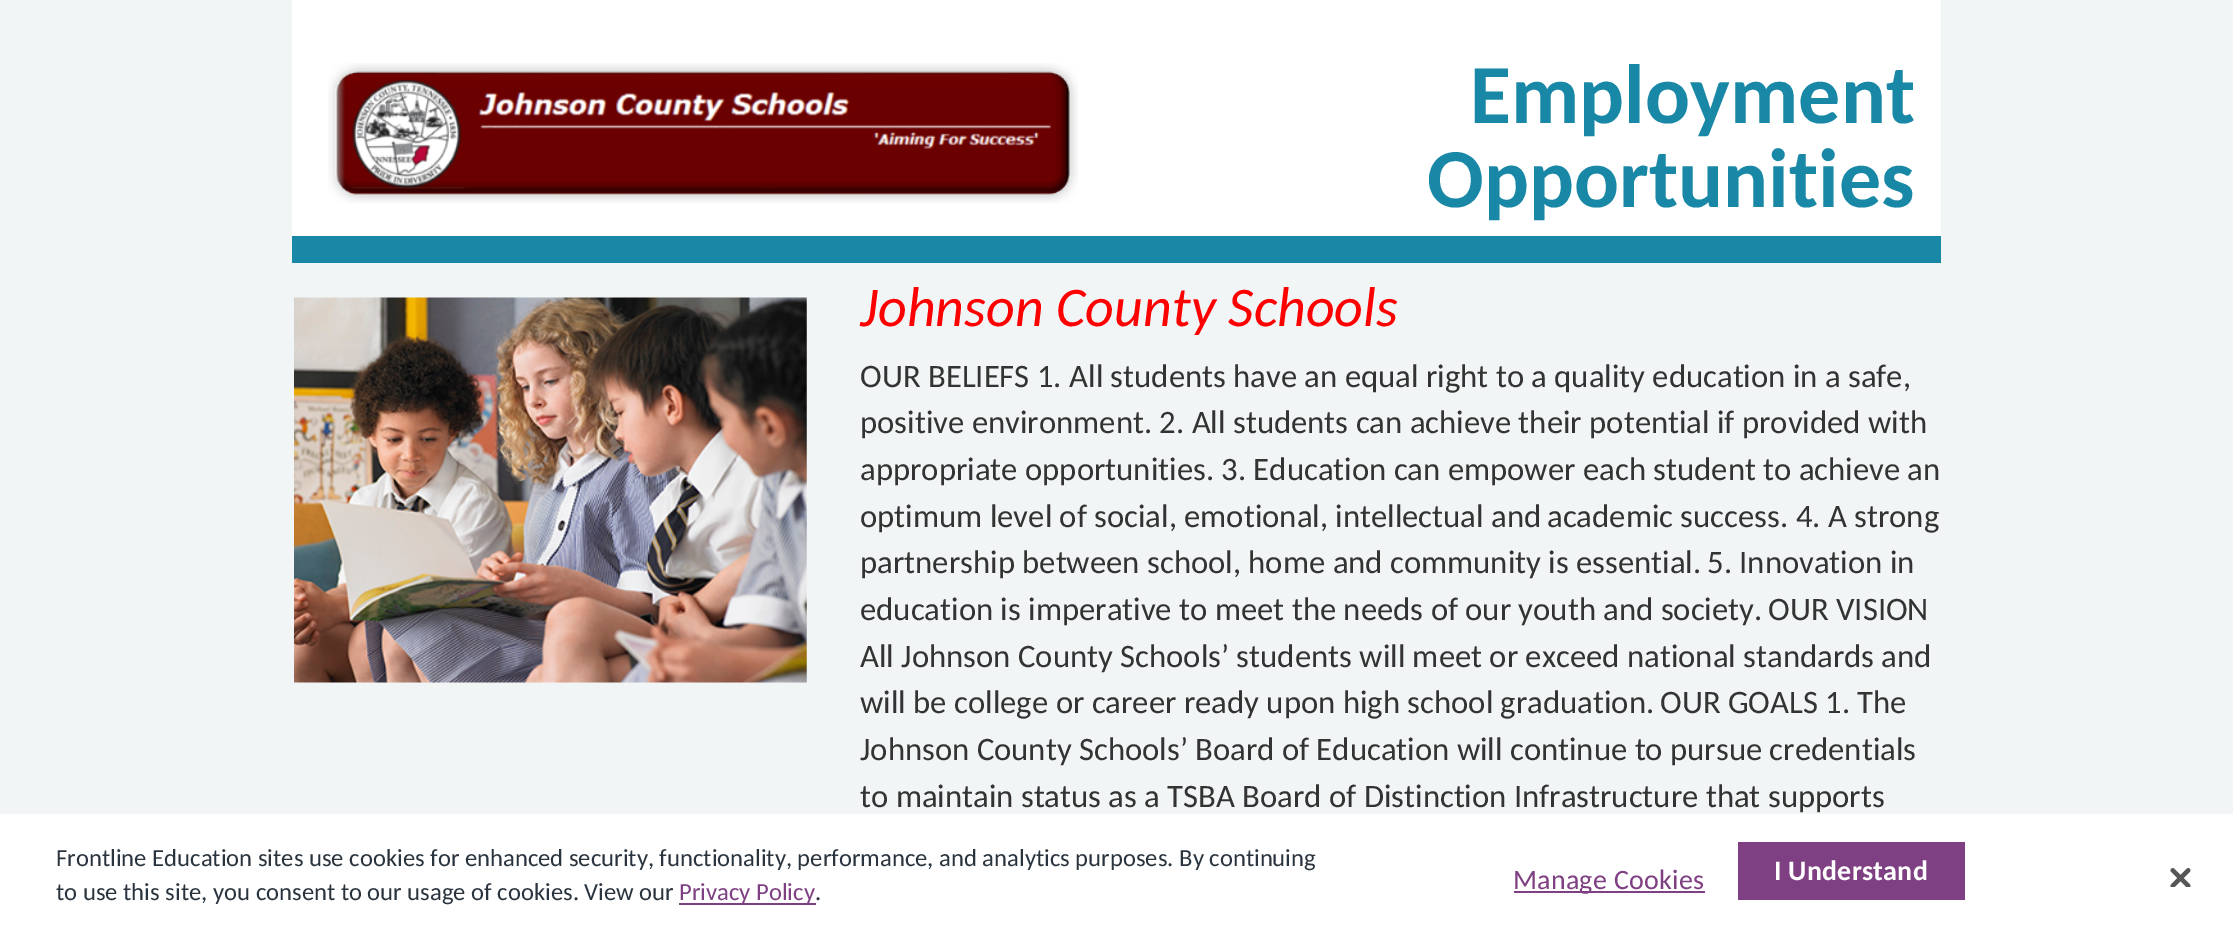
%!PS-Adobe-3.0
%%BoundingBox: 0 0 2233 940
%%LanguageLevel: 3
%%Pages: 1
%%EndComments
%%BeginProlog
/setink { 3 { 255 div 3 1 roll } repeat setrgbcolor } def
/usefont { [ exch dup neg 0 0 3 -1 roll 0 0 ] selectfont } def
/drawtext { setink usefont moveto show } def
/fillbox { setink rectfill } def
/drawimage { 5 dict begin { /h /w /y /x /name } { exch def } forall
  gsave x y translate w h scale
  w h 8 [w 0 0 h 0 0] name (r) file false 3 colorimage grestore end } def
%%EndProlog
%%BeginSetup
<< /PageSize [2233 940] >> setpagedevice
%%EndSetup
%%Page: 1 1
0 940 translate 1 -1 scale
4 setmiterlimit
0 0 2233 940 242 245 246 fillbox
292 0 1649 236 255 255 255 fillbox
292 236 1649 27 25 136 166 fillbox
(assets/img1.rgb) 328 63 750 140 drawimage
(Employment) 1470 123 /Carlito-Bold 84 25 136 166 drawtext
(Opportunities) 1427 207 /Carlito-Bold 84 25 136 166 drawtext
(assets/img2.rgb) 294 297 513 386 drawimage
(Johnson County Schools) 860 326 /Carlito-Italic 56 255 0 0 drawtext
(OUR BELIEFS 1. All students have an equal right to a quality education in a safe,) 860 387 /Carlito-Regular 32.7 51 51 51 drawtext
(positive environment. 2. All students can achieve their potential if provided with) 860 433 /Carlito-Regular 32.7 51 51 51 drawtext
(appropriate opportunities. 3. Education can empower each student to achieve an) 860 480 /Carlito-Regular 32.7 51 51 51 drawtext
(optimum level of social, emotional, intellectual and) 860 527 /Carlito-Regular 32.7 51 51 51 drawtext
(academic success. 4. A strong) 1547 527 /Carlito-Regular 32.7 51 51 51 drawtext
(partnership between school, home and community is essential.) 860 573 /Carlito-Regular 32.7 51 51 51 drawtext
(5. Innovation in) 1707 573 /Carlito-Regular 32.7 51 51 51 drawtext
(education is imperative to meet the needs of our youth and society.) 860 620 /Carlito-Regular 32.7 51 51 51 drawtext
(OUR VISION) 1768 620 /Carlito-Regular 32.7 51 51 51 drawtext
(All Johnson County Schools’ students will meet or exceed national standards and) 860 667 /Carlito-Regular 32.7 51 51 51 drawtext
(will be college or career ready upon high school graduation.) 860 713 /Carlito-Regular 32.7 51 51 51 drawtext
(OUR GOALS 1. The) 1660 713 /Carlito-Regular 32.7 51 51 51 drawtext
(Johnson County Schools’ Board of Education will continue to pursue credentials) 860 760 /Carlito-Regular 32.7 51 51 51 drawtext
(to maintain status as a TSBA Board of Distinction Infrastructure that supports) 860 807 /Carlito-Regular 32.7 51 51 51 drawtext
0 814 2233 126 255 255 255 fillbox
(Frontline Education sites use cookies for enhanced security, functionality, performance, and analytics purposes. By continuing) 56 866 /Carlito-Regular 24.65 42 52 62 drawtext
(to use this site, you consent to our usage of cookies. View our) 56 900 /Carlito-Regular 24.65 42 52 62 drawtext
679 903 137 2 126 64 130 fillbox
(Privacy Policy) 679 900 /Carlito-Regular 24.65 126 64 130 drawtext
(.) 815 900 /Carlito-Regular 24.65 42 52 62 drawtext
1514 891 191 2 126 64 130 fillbox
/Carlito-Regular 28 usefont
1513 889 moveto 0.25 0 (Manage Cookies) ashow
1738 842 227 58 126 64 130 fillbox
/Carlito-Bold 28 usefont
255 255 255 setink
1774 880 moveto 0.25 0 (I Understand) ashow
(assets/img3.rgb) 2170 868 21 19 drawimage
showpage
%%EOF
